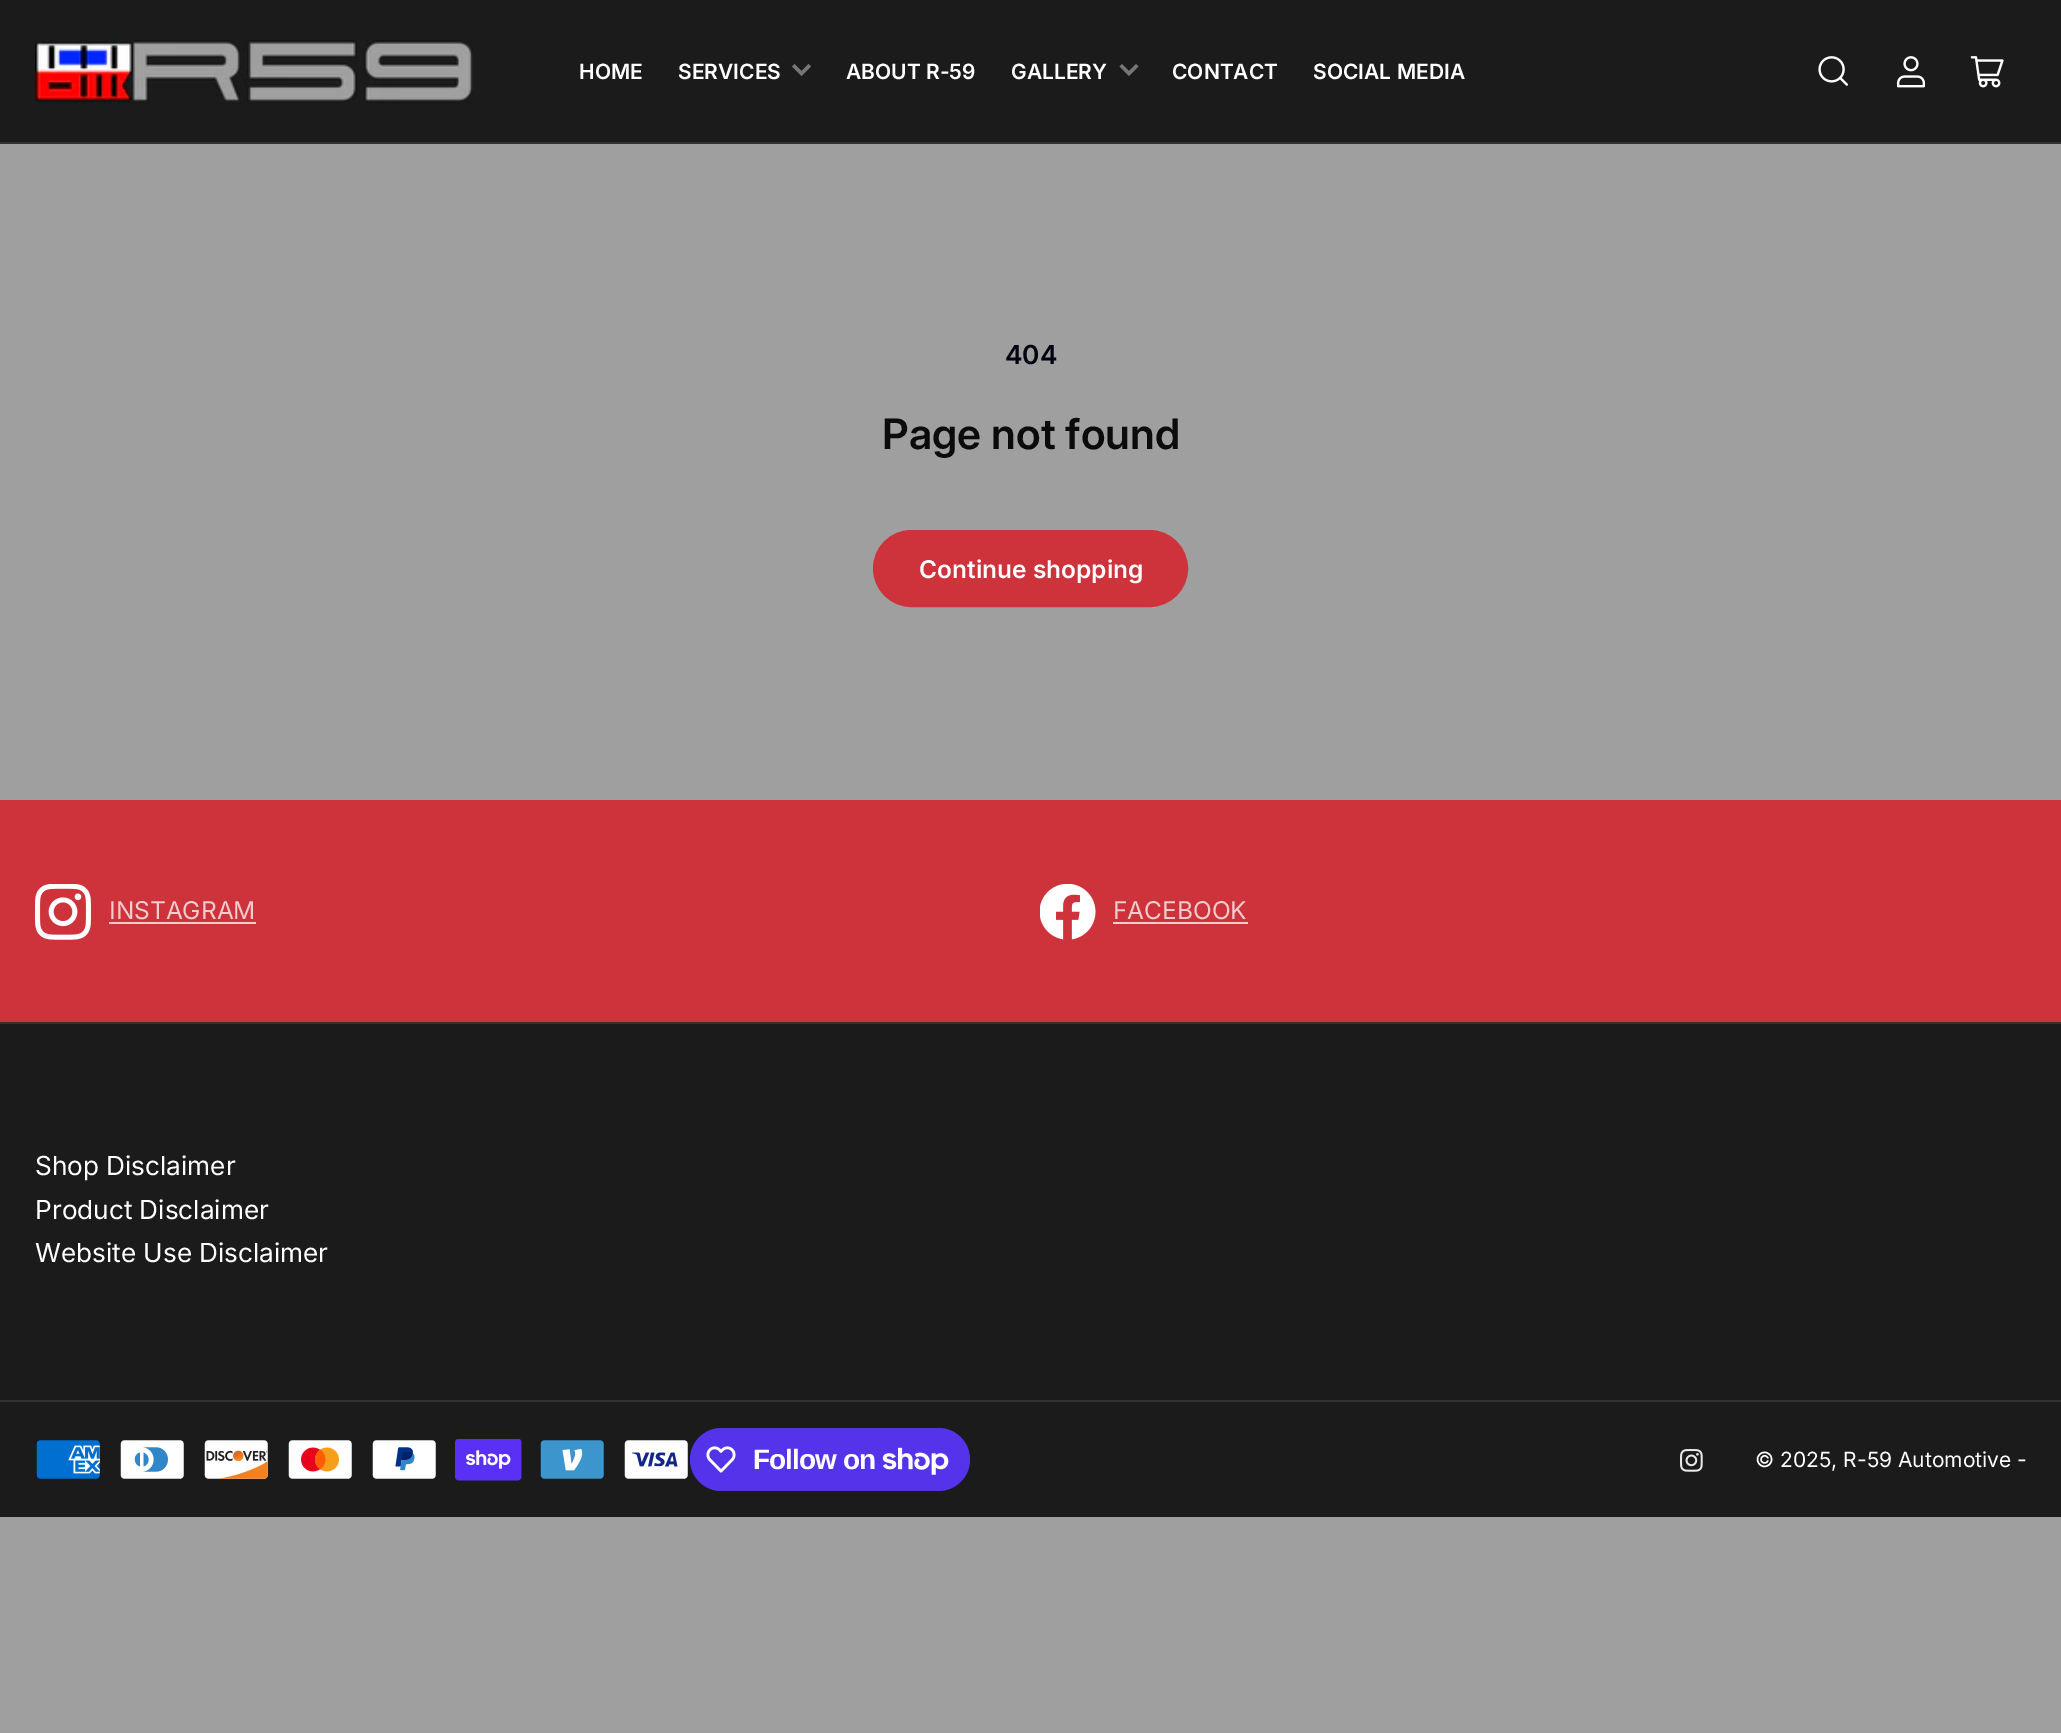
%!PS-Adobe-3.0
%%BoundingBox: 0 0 2061 1733
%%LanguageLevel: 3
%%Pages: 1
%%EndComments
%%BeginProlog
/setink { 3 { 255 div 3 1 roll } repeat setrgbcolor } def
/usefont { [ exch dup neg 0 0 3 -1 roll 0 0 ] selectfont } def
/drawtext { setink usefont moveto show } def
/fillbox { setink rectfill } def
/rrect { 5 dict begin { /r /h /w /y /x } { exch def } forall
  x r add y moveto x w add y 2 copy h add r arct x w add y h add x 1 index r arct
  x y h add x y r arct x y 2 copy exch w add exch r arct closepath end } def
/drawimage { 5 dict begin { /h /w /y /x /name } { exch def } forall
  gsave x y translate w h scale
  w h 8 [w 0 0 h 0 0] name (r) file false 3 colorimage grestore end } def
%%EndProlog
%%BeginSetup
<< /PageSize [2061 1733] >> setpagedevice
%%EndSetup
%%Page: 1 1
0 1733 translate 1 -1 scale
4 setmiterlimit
0 0 2061 1733 159 159 159 fillbox
0 0 2061 142 27 27 27 fillbox
0 142 2061 2 50 50 50 fillbox
(assets/img1.rgb) 35 40 438 64 drawimage
(HOME) 579 79 /Inter-SemiBold 21 255 255 255 drawtext
(SERVICES) 678 79 /Inter-SemiBold 21 255 255 255 drawtext
118 118 118 setink
3.5 setlinewidth
2 setlinecap
808.5 66.5 moveto 801.5 73.5 lineto 794.5 66.5 lineto stroke
(ABOUT R-59) 846 79 /Inter-SemiBold 21 255 255 255 drawtext
(GALLERY) 1011 79 /Inter-SemiBold 21 255 255 255 drawtext
118 118 118 setink
1136 66.5 moveto 1129 73.5 lineto 1122 66.5 lineto stroke
(CONTACT) 1172 79 /Inter-SemiBold 21 255 255 255 drawtext
(SOCIAL MEDIA) 1313 79 /Inter-SemiBold 21 255 255 255 drawtext
(assets/img2.rgb) 1818 56 30 30 drawimage
(assets/img3.rgb) 1896 56 30 32 drawimage
(assets/img4.rgb) 1970 56 34 32 drawimage
(404) 1005 364 /Inter-SemiBold 26.25 1 4 16 drawtext
(Page not found) 882 449 /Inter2-SemiBold 42 11 11 11 drawtext
206 51 60 setink
874 531 313 75 37.5 rrect gsave fill grestore
2 setlinewidth
0 setlinecap
stroke
(Continue shopping) 919 578 /Inter-SemiBold 24.5 255 255 255 drawtext
0 800 2061 222 206 51 60 fillbox
(assets/img5.rgb) 35 884 56 56 drawimage
(INSTAGRAM) 109 919 /Inter2-Regular 24.5 243 204 206 drawtext
109 922 147 2 243 204 206 fillbox
(assets/img6.rgb) 1040 884 56 56 drawimage
(FACEBOOK) 1113 919 /Inter2-Regular 24.5 243 204 206 drawtext
1113 922 135 2 243 204 206 fillbox
0 1024 2061 376 27 27 27 fillbox
0 1022 2061 2 50 50 50 fillbox
(Shop Disclaimer) 35 1175 /Inter-Regular 26.25 255 255 255 drawtext
(Product Disclaimer) 35 1219 /Inter-Regular 26.25 255 255 255 drawtext
(Website Use Disclaimer) 35 1262 /Inter-Regular 26.25 255 255 255 drawtext
0 1402 2061 115 27 27 27 fillbox
0 1400 2061 2 50 50 50 fillbox
(assets/img7.rgb) 36 1440 64 39 drawimage
(assets/img8.rgb) 120 1440 64 39 drawimage
(assets/img9.rgb) 204 1440 64 39 drawimage
(assets/img10.rgb) 288 1440 64 39 drawimage
(assets/img11.rgb) 372 1440 64 39 drawimage
(assets/img12.rgb) 455 1439 67 42 drawimage
(assets/img13.rgb) 540 1440 64 39 drawimage
(assets/img14.rgb) 624 1440 64 39 drawimage
84 51 235 setink
690 1428 280 63 31.5 rrect fill
(assets/img15.rgb) 706 1446 30 27 drawimage
/LiberationSans-Bold 28 usefont
255 255 255 setink
753 1469 moveto -0.9 0 (Follow on) ashow
(assets/img16.rgb) 882 1447 67 28 drawimage
(assets/img17.rgb) 1680 1449 23 23 drawimage
(© 2025, R-59 Automotive -) 1755 1467 /Inter2-Regular 21 255 255 255 drawtext
showpage
%%EOF
